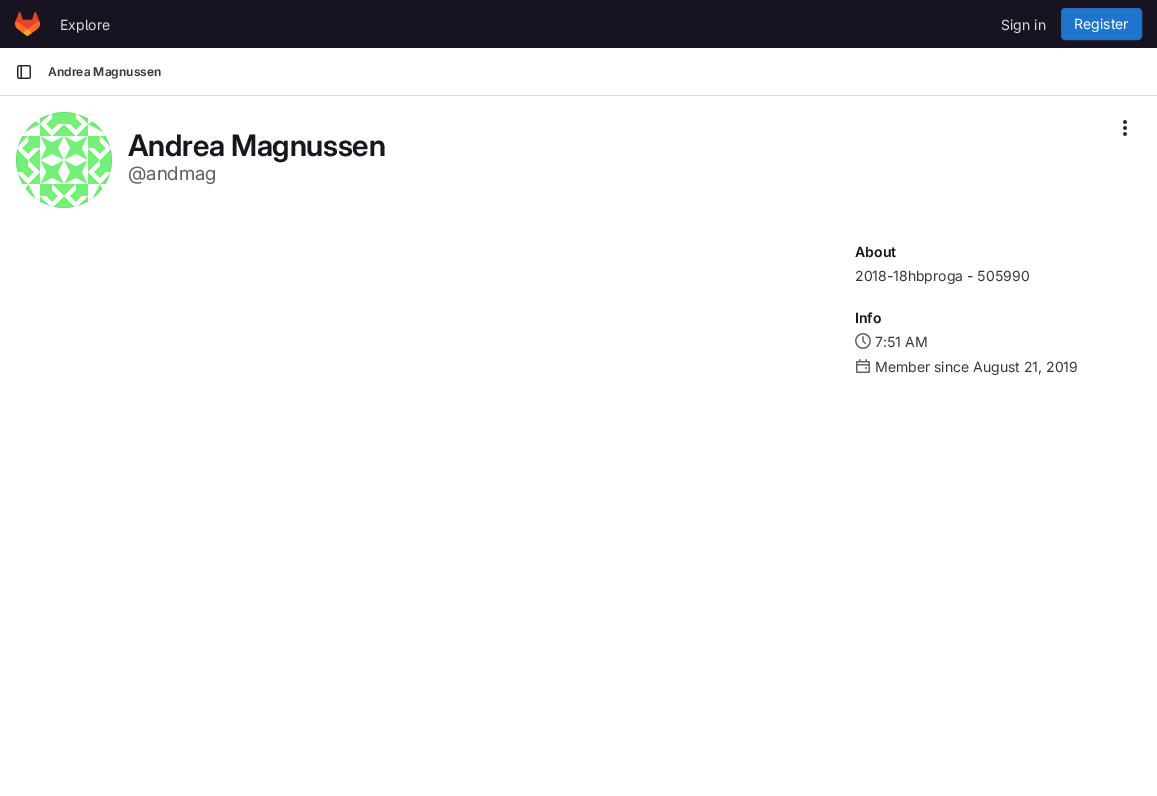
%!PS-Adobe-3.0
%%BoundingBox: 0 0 1157 796
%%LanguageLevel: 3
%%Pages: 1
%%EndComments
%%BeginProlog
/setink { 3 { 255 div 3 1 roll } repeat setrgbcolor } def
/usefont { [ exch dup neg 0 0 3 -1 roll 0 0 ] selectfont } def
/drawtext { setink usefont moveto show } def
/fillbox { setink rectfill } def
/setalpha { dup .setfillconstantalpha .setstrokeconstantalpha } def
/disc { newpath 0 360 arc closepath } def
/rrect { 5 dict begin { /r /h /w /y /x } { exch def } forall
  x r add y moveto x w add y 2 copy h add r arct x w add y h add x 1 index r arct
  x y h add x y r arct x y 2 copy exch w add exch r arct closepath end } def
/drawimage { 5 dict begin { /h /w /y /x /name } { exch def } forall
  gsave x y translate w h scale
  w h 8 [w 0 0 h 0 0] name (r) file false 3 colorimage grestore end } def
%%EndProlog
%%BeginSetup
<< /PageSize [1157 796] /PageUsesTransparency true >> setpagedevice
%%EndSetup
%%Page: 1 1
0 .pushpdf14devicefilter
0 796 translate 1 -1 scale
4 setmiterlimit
0 0 1157 796 255 255 255 fillbox
0 0 1157 48 23 19 33 fillbox
(assets/img1.rgb) 15 12 25 24 drawimage
(Explore) 60 30 /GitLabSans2-Regular 14 220 220 222 drawtext
(Sign in) 1001 30 /GitLabSans2-Regular 14 220 220 222 drawtext
31 117 203 setink
1061.5 8.5 80 31 3.5 rrect gsave fill grestore
47 104 180 setink
stroke
(Register) 1074 29 /GitLabSans2-Regular 14 255 255 255 drawtext
0 95 1157 1 220 220 222 fillbox
(assets/img2.rgb) 17 65 14 14 drawimage
(Andrea Magnussen) 48 76 /GitLabSans2-SemiBold 12 58 56 63 drawtext
(assets/img3.rgb) 1123 120 4 16 drawimage
(assets/img4.rgb) 16 112 96 96 drawimage
0.08 setalpha
5 5 6 setink
64 160 47.5 disc stroke
/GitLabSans-SemiBold 29.5 usefont
1 setalpha
24 23 29 setink
128 156 moveto -0.25 0 (Andrea Magnussen) ashow
(@andmag) 128 180 /GitLabSans-Regular 19 98 97 104 drawtext
(About) 855 257 /GitLabSans2-SemiBold 14 24 23 29 drawtext
(2018-18hbproga - 505990) 855 281 /GitLabSans2-Regular 14 58 56 63 drawtext
(Info) 855 323 /GitLabSans2-SemiBold 14 24 23 29 drawtext
(assets/img5.rgb) 855 333 16 16 drawimage
(7:51 AM) 875 347 /GitLabSans2-Regular 14 58 56 63 drawtext
(assets/img6.rgb) 856 359 14 14 drawimage
(Member since August 21, 2019) 875 372 /GitLabSans2-Regular 14 58 56 63 drawtext
.poppdf14devicefilter showpage
%%EOF
